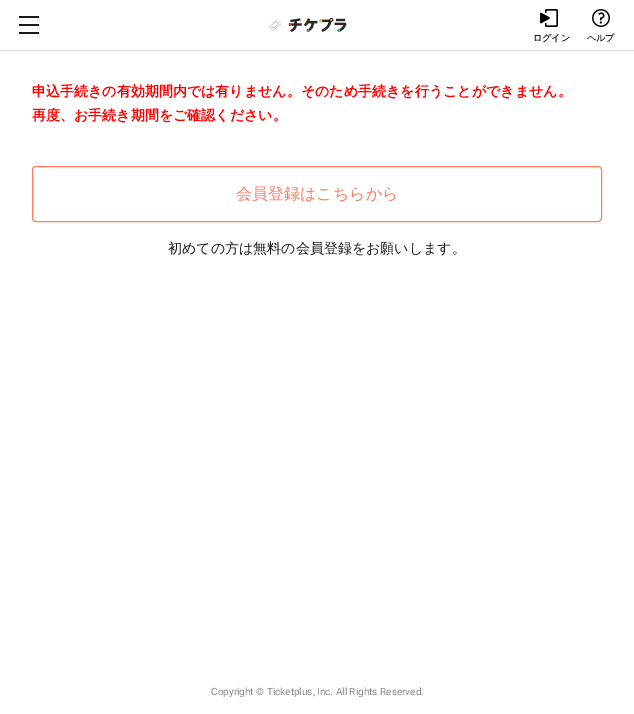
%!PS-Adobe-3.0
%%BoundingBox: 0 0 634 714
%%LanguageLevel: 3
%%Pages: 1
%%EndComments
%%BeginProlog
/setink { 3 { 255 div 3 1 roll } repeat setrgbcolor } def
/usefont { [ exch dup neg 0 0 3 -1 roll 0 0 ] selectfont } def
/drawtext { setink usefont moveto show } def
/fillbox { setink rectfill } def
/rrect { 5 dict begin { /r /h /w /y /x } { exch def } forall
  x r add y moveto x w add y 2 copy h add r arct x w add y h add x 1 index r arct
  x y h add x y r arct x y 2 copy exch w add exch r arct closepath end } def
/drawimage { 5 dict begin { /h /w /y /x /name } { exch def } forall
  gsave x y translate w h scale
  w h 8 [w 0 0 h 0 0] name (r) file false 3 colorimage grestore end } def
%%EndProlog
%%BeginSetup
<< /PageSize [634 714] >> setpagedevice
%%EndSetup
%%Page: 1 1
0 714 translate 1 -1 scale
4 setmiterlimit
0 0 634 714 255 255 255 fillbox
0 50 634 1 217 217 217 fillbox
19 16 20 2 26 26 26 fillbox
19 24 20 2 26 26 26 fillbox
19 32 20 2 26 26 26 fillbox
(assets/img1.rgb) 269 17 78 15 drawimage
(assets/img2.rgb) 540 9 18 18 drawimage
(ログイン) 533 41 /WenQuanYiZenHei-Bold 9 26 26 26 drawtext
(assets/img3.rgb) 592 9 18 18 drawimage
(ヘルプ) 587 41 /WenQuanYiZenHei-Bold 9 26 26 26 drawtext
(申込手続きの有効期間内では有りません。そのため手続きを行うことができません。) 32 96 /WenQuanYiZenHei-Bold 14 255 0 0 drawtext
(再度、お手続き期間をご確認ください。) 32 120 /WenQuanYiZenHei-Bold 14 255 0 0 drawtext
255 124 96 setink
32.5 166.5 569 55 3.5 rrect stroke
(会員登録はこちらから) 236 199 /WenQuanYiZenHei-Medium 16 255 124 96 drawtext
(初めての方は無料の会員登録をお願いします。) 168 253 /WenQuanYiZenHei-Medium 14 26 26 26 drawtext
(Copyright © Ticketplus, Inc. All Rights Reserved.) 211 695 /Roboto-Regular 10 136 136 136 drawtext
showpage
%%EOF
